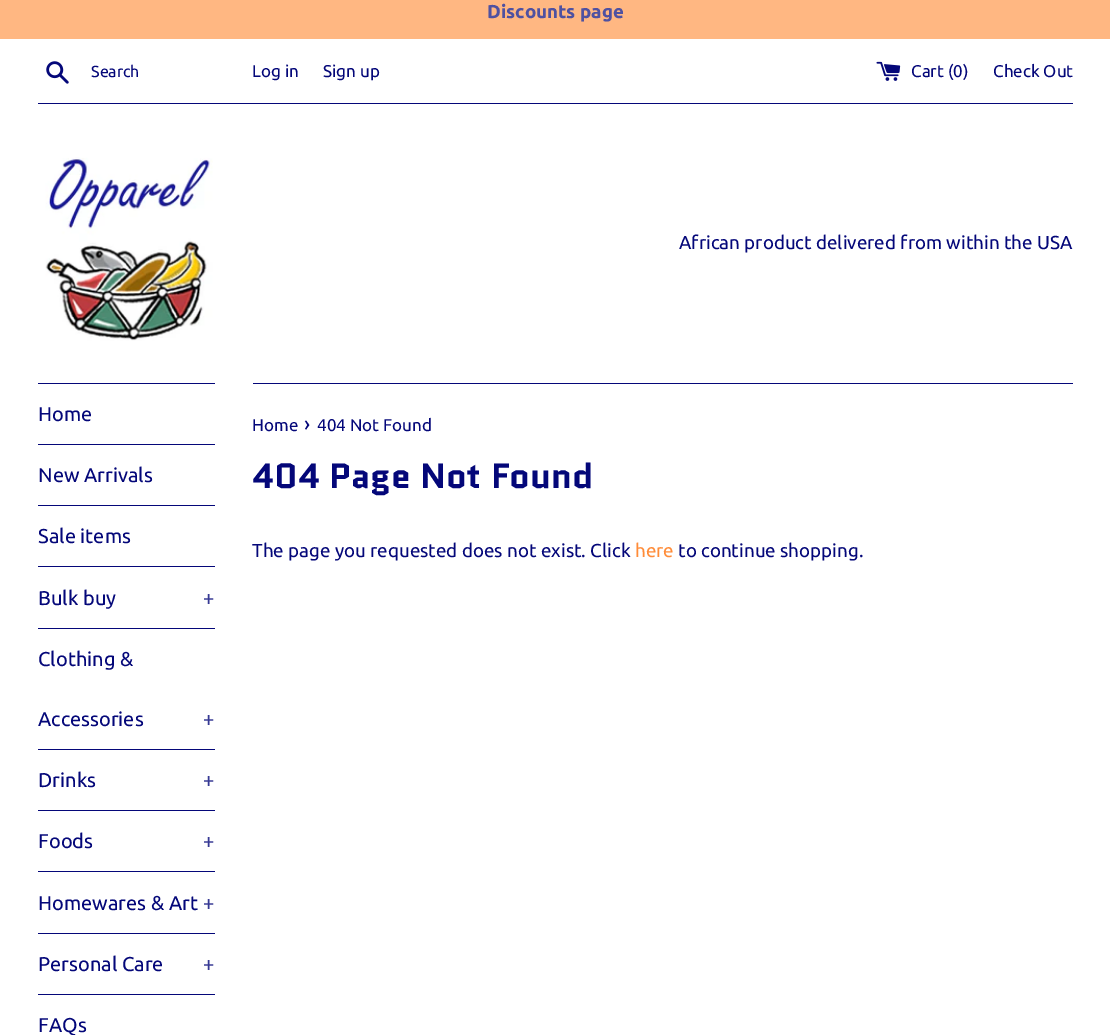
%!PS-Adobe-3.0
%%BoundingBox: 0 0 1110 1035
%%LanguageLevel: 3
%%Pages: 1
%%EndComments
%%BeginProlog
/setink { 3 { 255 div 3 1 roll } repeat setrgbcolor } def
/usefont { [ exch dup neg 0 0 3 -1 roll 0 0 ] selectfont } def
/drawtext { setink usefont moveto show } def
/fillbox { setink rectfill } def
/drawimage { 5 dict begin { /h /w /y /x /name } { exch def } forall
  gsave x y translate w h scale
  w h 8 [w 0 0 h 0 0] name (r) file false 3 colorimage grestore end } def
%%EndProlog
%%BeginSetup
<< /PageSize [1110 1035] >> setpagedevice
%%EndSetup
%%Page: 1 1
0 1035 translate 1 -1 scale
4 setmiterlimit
0 0 1110 1035 255 255 255 fillbox
0 0 1110 39 255 183 130 fillbox
(Discounts page) 487 18 /Ubuntu-Bold 18.75 79 81 161 drawtext
(assets/img1.rgb) 46 61 23 23 drawimage
(Search) 91 77 /Ubuntu-Regular 16 4 7 121 drawtext
(Log in) 252 77 /Ubuntu-Regular 17 4 7 121 drawtext
(Sign up) 323 77 /Ubuntu-Regular 17 4 7 121 drawtext
(assets/img2.rgb) 876 61 25 20 drawimage
(Cart \(0\)) 911 77 /Ubuntu-Regular 17 4 7 121 drawtext
(Check Out) 993 77 /Ubuntu-Regular 17 4 7 121 drawtext
38 103 1035 1 4 7 121 fillbox
(assets/img3.rgb) 45 157 168 184 drawimage
(African product delivered from within the USA) 679 249 /Ubuntu-Regular 18.75 4 7 121 drawtext
38 383 177 1 4 7 121 fillbox
38 444 177 1 4 7 121 fillbox
(Home) 38 421 /Ubuntu-Regular 20 4 7 121 drawtext
38 505 177 1 4 7 121 fillbox
(New Arrivals) 38 482 /Ubuntu-Regular 20 4 7 121 drawtext
38 566 177 1 4 7 121 fillbox
(Sale items) 38 543 /Ubuntu-Regular 20 4 7 121 drawtext
38 628 177 1 4 7 121 fillbox
(Bulk buy) 38 605 /Ubuntu-Regular 20 4 7 121 drawtext
(+) 203 605 /Ubuntu-Regular 20 54 57 148 drawtext
38 749 177 1 4 7 121 fillbox
(Clothing &) 38 666 /Ubuntu-Regular 20 4 7 121 drawtext
(Accessories) 38 726 /Ubuntu-Regular 20 4 7 121 drawtext
(+) 203 726 /Ubuntu-Regular 20 54 57 148 drawtext
38 810 177 1 4 7 121 fillbox
(Drinks) 38 787 /Ubuntu-Regular 20 4 7 121 drawtext
(+) 203 787 /Ubuntu-Regular 20 54 57 148 drawtext
38 871 177 1 4 7 121 fillbox
(Foods) 38 848 /Ubuntu-Regular 20 4 7 121 drawtext
(+) 203 848 /Ubuntu-Regular 20 54 57 148 drawtext
38 933 177 1 4 7 121 fillbox
(Homewares & Art) 38 910 /Ubuntu-Regular 20 4 7 121 drawtext
(+) 203 910 /Ubuntu-Regular 20 54 57 148 drawtext
38 994 177 1 4 7 121 fillbox
(Personal Care) 38 971 /Ubuntu-Regular 20 4 7 121 drawtext
(+) 203 971 /Ubuntu-Regular 20 54 57 148 drawtext
(FAQs) 38 1032 /Ubuntu-Regular 20 4 7 121 drawtext
253 383 820 1 4 7 121 fillbox
(Home) 252 431 /Ubuntu-Regular 17 4 7 121 drawtext
(›) 304 431 /Ubuntu-Regular 21 4 7 121 drawtext
(404 Not Found) 317 431 /Ubuntu-Regular 17 4 7 121 drawtext
(404 Page Not Found) 252 488 /Quantico-Bold 35 4 7 121 drawtext
(The page you requested does not exist. Click) 252 557 /Ubuntu-Regular 18.75 4 7 121 drawtext
(here) 635 557 /Ubuntu-Regular 18.75 255 140 56 drawtext
(to continue shopping.) 678 557 /Ubuntu-Regular 18.75 4 7 121 drawtext
showpage
%%EOF
